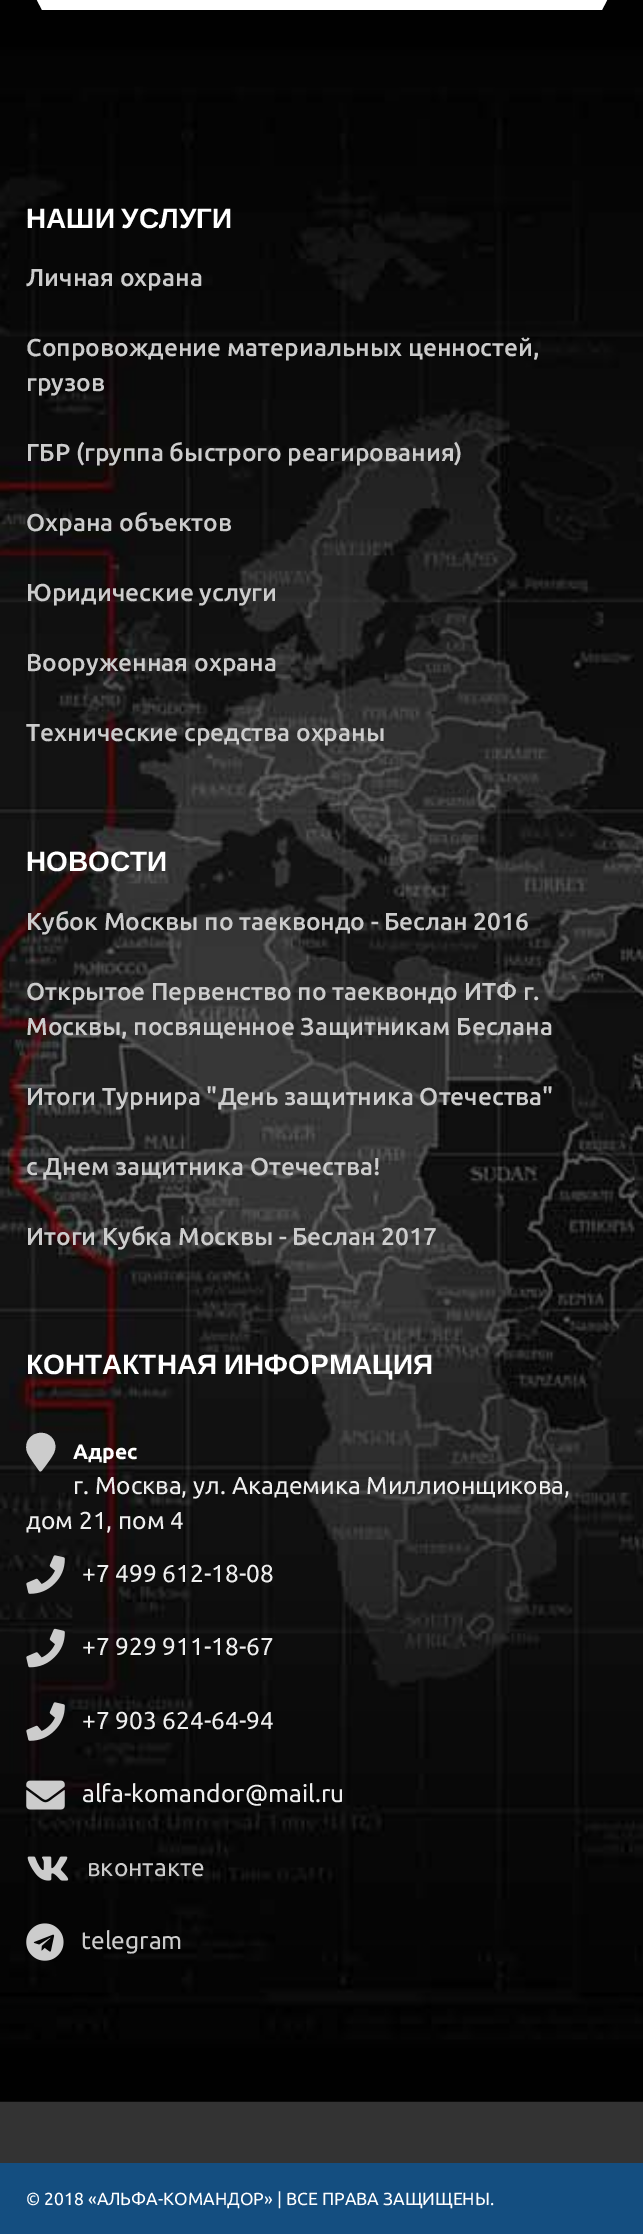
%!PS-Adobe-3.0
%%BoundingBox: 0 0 643 2234
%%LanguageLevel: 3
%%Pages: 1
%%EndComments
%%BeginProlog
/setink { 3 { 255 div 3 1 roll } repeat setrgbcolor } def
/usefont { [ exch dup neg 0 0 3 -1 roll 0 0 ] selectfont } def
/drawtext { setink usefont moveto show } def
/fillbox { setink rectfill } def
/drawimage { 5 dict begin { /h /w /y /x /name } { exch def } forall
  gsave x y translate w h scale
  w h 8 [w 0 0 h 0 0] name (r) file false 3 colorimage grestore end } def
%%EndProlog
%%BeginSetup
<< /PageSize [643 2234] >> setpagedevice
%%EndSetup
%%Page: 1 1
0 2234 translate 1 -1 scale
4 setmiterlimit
0 0 643 2234 51 51 51 fillbox
(assets/img1.rgb) 0 0 643 2102 drawimage
255 255 255 setink
32 -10 moveto 612 -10 lineto 602 10 lineto 42 10 lineto closepath fill
/LiberationSans-Bold 28 usefont
26 228 moveto -1 0 32 (НАШИ УСЛУГИ) widthshow
(Личная охрана) 26 286 /Ubuntu-Medium 24.5 204 204 204 drawtext
(Сопровождение материальных ценностей,) 26 356 /Ubuntu-Medium 24.5 204 204 204 drawtext
(грузов) 26 391 /Ubuntu-Medium 24.5 204 204 204 drawtext
(ГБР \(группа быстрого реагирования\)) 26 461 /Ubuntu-Medium 24.5 204 204 204 drawtext
(Охрана объектов) 26 531 /Ubuntu-Medium 24.5 204 204 204 drawtext
(Юридические услуги) 26 601 /Ubuntu-Medium 24.5 204 204 204 drawtext
(Вооруженная охрана) 26 671 /Ubuntu-Medium 24.5 204 204 204 drawtext
(Технические средства охраны) 26 741 /Ubuntu-Medium 24.5 204 204 204 drawtext
(НОВОСТИ) 26 871 /LiberationSans-Bold 28 255 255 255 drawtext
(Кубок Москвы по таеквондо - Беслан 2016) 26 930 /Ubuntu-Medium 24.5 204 204 204 drawtext
(Открытое Первенство по таеквондо ИТФ г.) 26 1000 /Ubuntu-Medium 24.5 204 204 204 drawtext
(Москвы, посвященное Защитникам Беслана) 26 1035 /Ubuntu-Medium 24.5 204 204 204 drawtext
(Итоги Турнира "День защитника Отечества") 26 1105 /Ubuntu-Medium 24.5 204 204 204 drawtext
(с Днем защитника Отечества!) 26 1175 /Ubuntu-Medium 24.5 204 204 204 drawtext
(Итоги Кубка Москвы - Беслан 2017) 26 1245 /Ubuntu-Medium 24.5 204 204 204 drawtext
/LiberationSans-Bold 28 usefont
255 255 255 setink
26 1374 moveto -1 0 32 (КОНТАКТНАЯ ИНФОРМАЦИЯ) widthshow
204 204 204 setink
39 1470.5 moveto 33 1462 lineto 30.5 1458 27.5 1454.5 26.5 1450 curveto 23.5 1434.5 44 1426.5 53 1439 curveto 59.5 1449 51.5 1457 46.5 1464.5 curveto 41.5 1471 lineto 40.5 1471.5 39.5 1471.5 39 1470.5 curveto closepath fill
(Адрес) 73 1459 /Ubuntu-Bold 21 255 255 255 drawtext
(г. Москва, ул. Академика Миллионщикова,) 73 1494 /Ubuntu-Regular 24.5 238 238 238 drawtext
(дом 21, пом 4) 26 1529 /Ubuntu-Regular 24.5 238 238 238 drawtext
(assets/img2.rgb) 26 1555 39 39 drawimage
(+7 499 612-18-08) 82 1582 /Ubuntu-Regular 24.5 238 238 238 drawtext
(assets/img3.rgb) 26 1628 39 40 drawimage
(+7 929 911-18-67) 82 1655 /Ubuntu-Regular 24.5 238 238 238 drawtext
(assets/img4.rgb) 26 1702 39 39 drawimage
(+7 903 624-64-94) 82 1729 /Ubuntu-Regular 24.5 238 238 238 drawtext
(assets/img5.rgb) 26 1780 39 30 drawimage
(alfa-komandor@mail.ru) 82 1802 /Ubuntu-Regular 24.5 238 238 238 drawtext
(assets/img6.rgb) 27 1856 42 25 drawimage
(вконтакте) 87 1876 /Ubuntu-Regular 24.5 204 204 204 drawtext
(assets/img7.rgb) 26 1923 38 38 drawimage
(telegram) 81 1949 /Ubuntu-Regular 24.5 204 204 204 drawtext
0 2163 643 71 20 78 128 fillbox
(© 2018 «АЛЬФА-КОМАНДОР» | ВСЕ ПРАВА ЗАЩИЩЕНЫ.) 26 2205 /Ubuntu-Regular 17.5 255 255 255 drawtext
showpage
%%EOF
